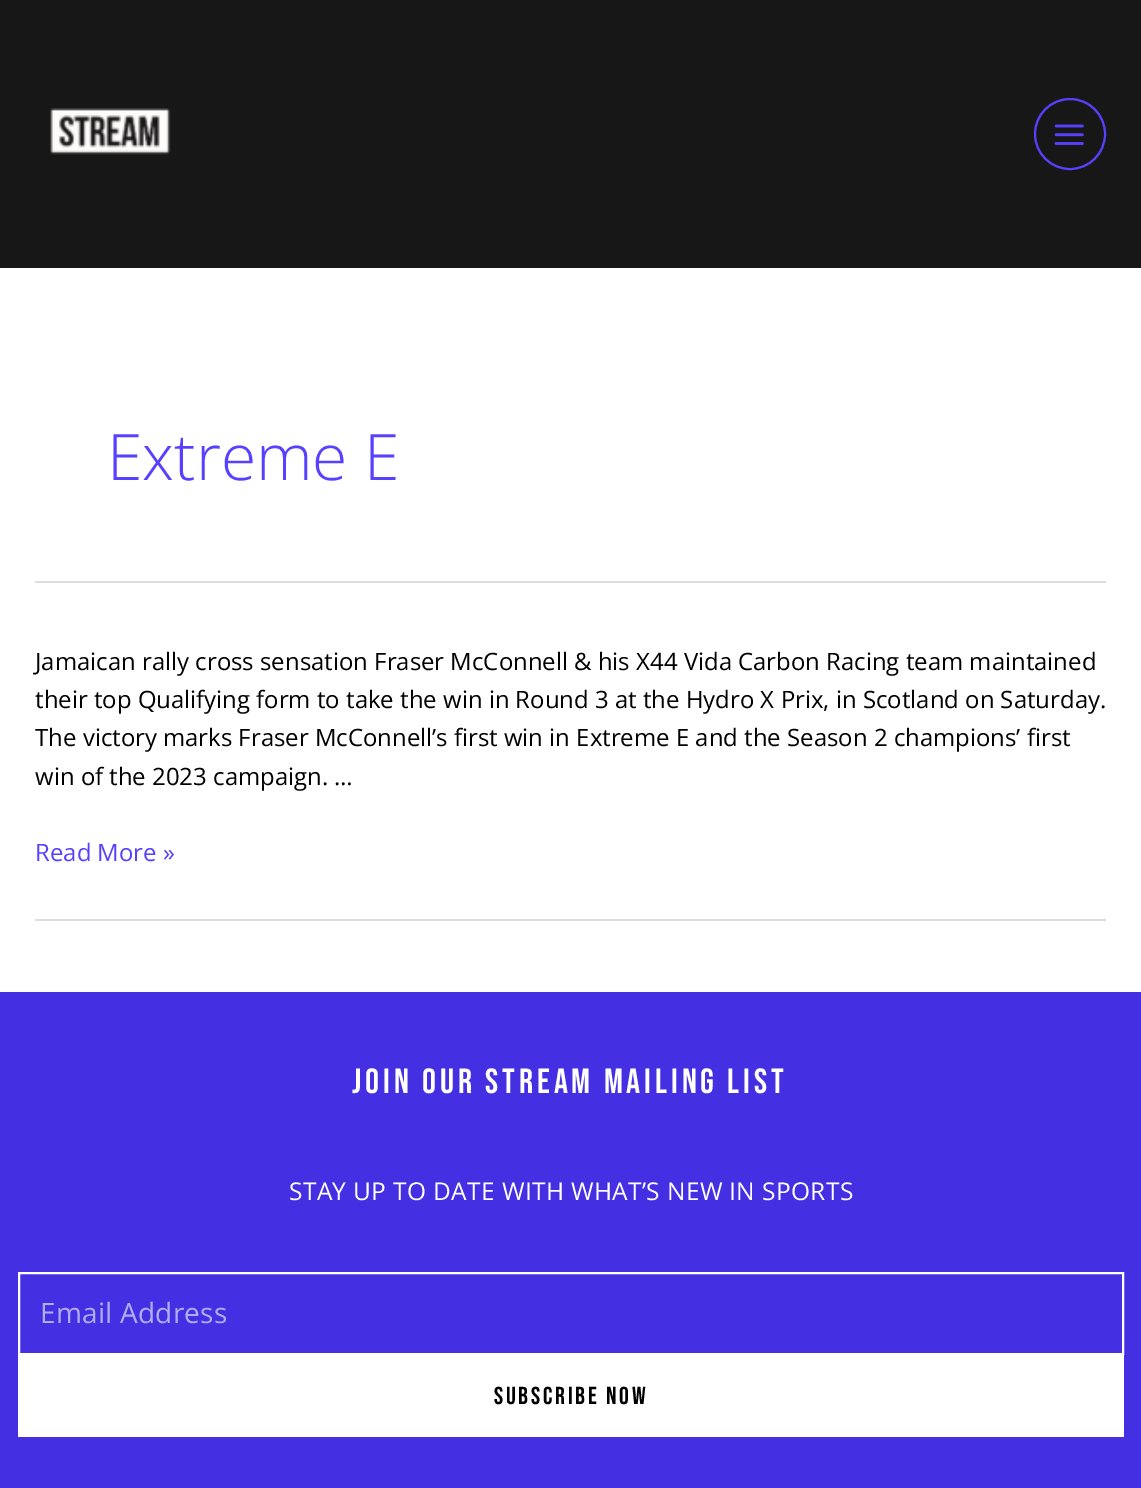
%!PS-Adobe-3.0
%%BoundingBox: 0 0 1141 1488
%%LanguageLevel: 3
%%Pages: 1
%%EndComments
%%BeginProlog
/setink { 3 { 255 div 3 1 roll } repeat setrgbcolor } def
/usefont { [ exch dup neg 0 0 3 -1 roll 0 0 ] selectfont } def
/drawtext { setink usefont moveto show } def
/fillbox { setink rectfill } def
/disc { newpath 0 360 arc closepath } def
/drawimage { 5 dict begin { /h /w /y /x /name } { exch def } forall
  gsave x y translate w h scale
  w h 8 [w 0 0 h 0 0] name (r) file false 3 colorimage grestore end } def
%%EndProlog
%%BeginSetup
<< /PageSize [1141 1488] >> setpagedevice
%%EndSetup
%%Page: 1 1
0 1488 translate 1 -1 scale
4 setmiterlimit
0 0 1141 1488 255 255 255 fillbox
0 0 1141 268 23 23 23 fillbox
(assets/img1.rgb) 50 108 121 47 drawimage
87 65 255 setink
2 setlinewidth
1070 134 35 disc stroke
(assets/img2.rgb) 1054 124 30 21 drawimage
35 581 1071 2 221 221 221 fillbox
(Extreme E) 107 480 /OpenSans-Light 64 87 65 255 drawtext
35 919 1071 2 221 221 221 fillbox
(Jamaican rally cross sensation Fraser McConnell & his X44 Vida Carbon Racing team maintained) 35 670 /OpenSans-Regular 23.95 0 0 0 drawtext
(their top Qualifying form to take the win in Round 3 at the Hydro X Prix, in Scotland on Saturday.) 35 708 /OpenSans-Regular 23.95 0 0 0 drawtext
(The victory marks Fraser McConnell’s first win in Extreme E and the Season 2 champions’ first) 35 746 /OpenSans-Regular 23.95 0 0 0 drawtext
(win of the 2023 campaign. …) 35 785 /OpenSans-Regular 23.95 0 0 0 drawtext
(Read More ») 35 861 /OpenSans-Regular 23.95 87 65 255 drawtext
0 992 1141 496 68 48 226 fillbox
/BebasNeue-Regular 35 usefont
255 255 255 setink
352 1093 moveto 3.9 0 (JOIN OUR STREAM MAILING LIST) ashow
/OpenSans-Regular 24.5 usefont
289 1200 moveto 0.35 0 (STAY UP TO DATE WITH WHAT’S NEW IN SPORTS) ashow
19 1273 1104 81 rectstroke
/OpenSans-Regular 28 usefont
180 172 243 setink
40 1323 moveto 0.25 0 (Email Address) ashow
18 1355 1106 82 255 255 255 fillbox
/BebasNeue-Regular 24.5 usefont
0 0 0 setink
494 1404 moveto 2.75 0 (SUBSCRIBE NOW) ashow
showpage
%%EOF
